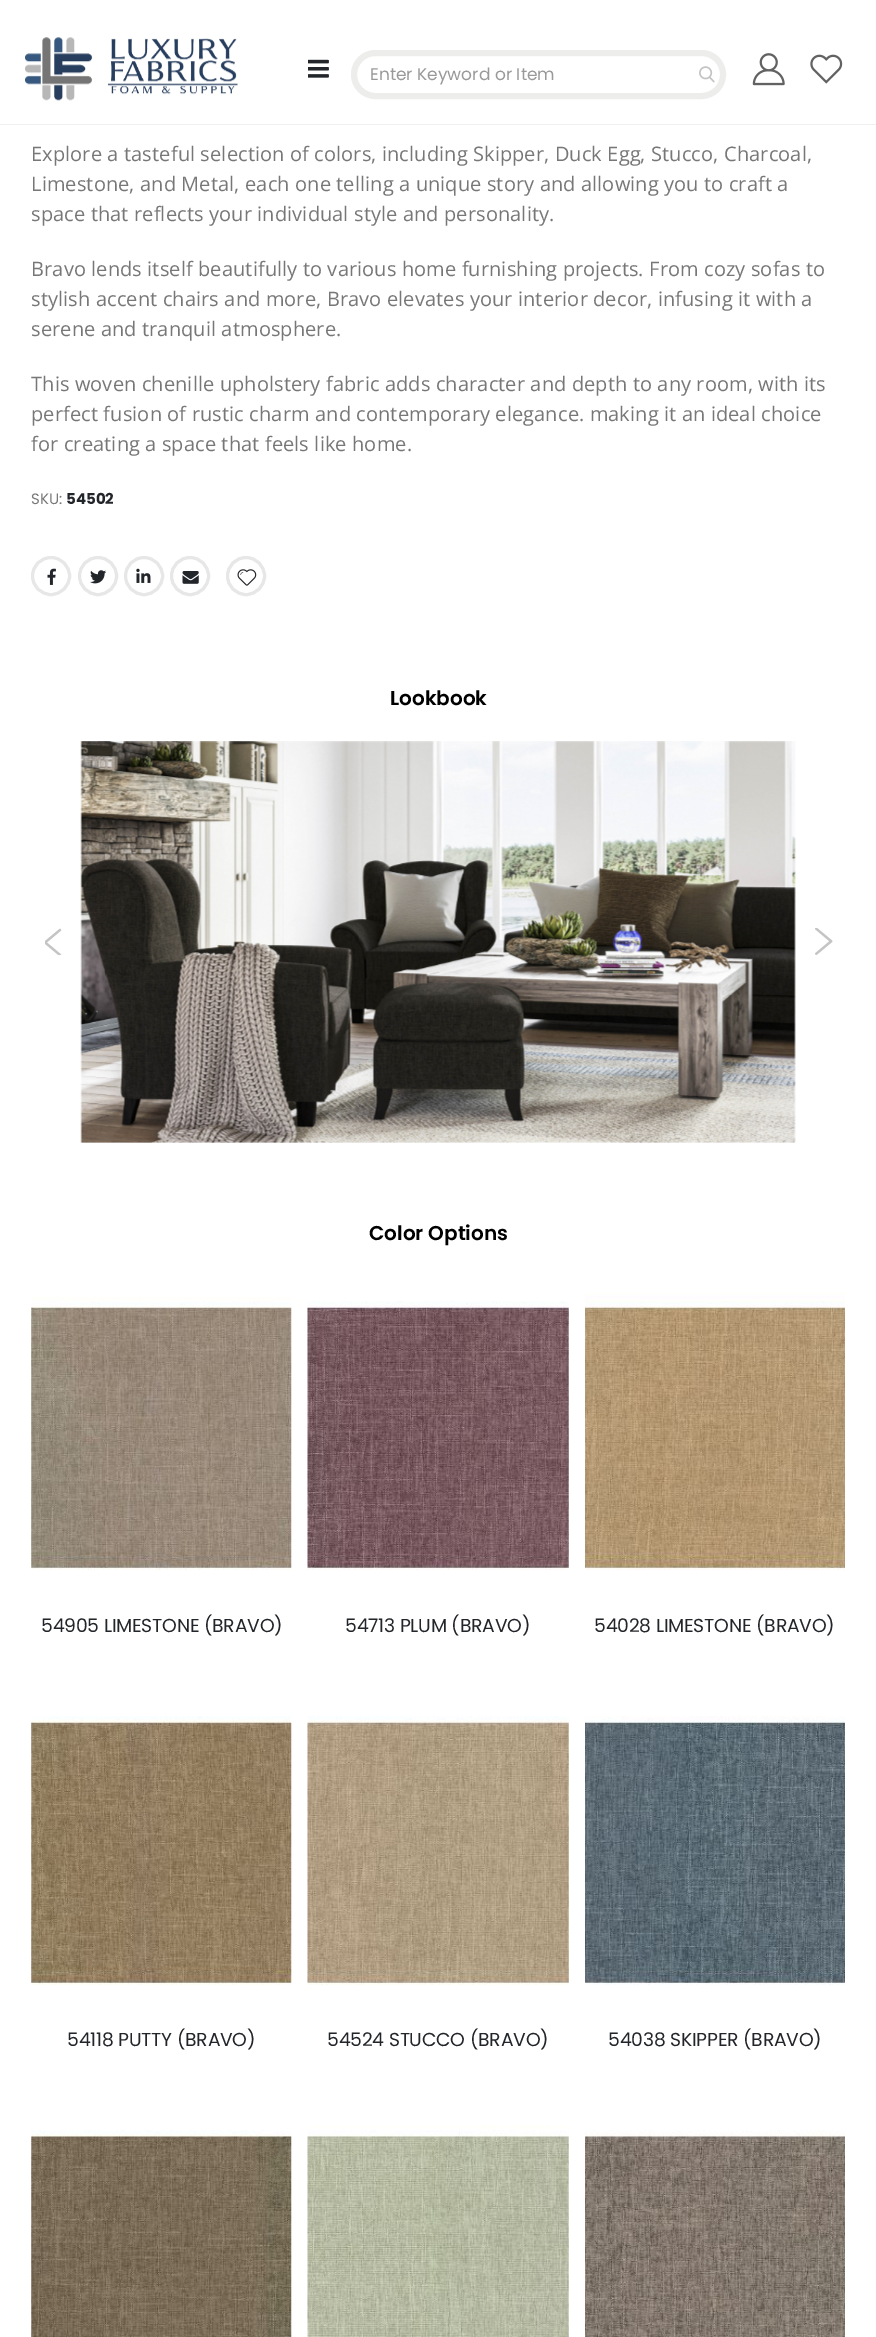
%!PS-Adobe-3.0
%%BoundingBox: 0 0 876 2337
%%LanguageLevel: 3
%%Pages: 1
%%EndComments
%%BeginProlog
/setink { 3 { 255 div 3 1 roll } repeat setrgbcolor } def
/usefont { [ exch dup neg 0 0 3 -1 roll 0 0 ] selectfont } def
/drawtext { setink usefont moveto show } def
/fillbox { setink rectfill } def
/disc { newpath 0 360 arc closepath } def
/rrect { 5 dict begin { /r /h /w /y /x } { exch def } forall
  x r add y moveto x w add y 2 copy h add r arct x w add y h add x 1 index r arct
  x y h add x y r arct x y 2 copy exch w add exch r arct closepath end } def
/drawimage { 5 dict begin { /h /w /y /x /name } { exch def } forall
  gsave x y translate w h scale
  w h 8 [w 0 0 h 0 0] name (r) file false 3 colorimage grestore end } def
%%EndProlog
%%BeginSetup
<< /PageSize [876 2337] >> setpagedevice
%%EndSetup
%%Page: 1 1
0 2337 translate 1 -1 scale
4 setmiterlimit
0 0 876 2337 255 255 255 fillbox
0 124 876 1 240 240 240 fillbox
(assets/img1.rgb) 25 37 213 64 drawimage
(assets/img2.rgb) 308 59 21 19 drawimage
237 237 236 setink
6 setlinewidth
354 53 369 43 21.5 rrect stroke
(Enter Keyword or Item) 370 80 /Poppins-Regular 17 153 153 153 drawtext
(assets/img3.rgb) 699 66 16 17 drawimage
(assets/img4.rgb) 752 53 33 33 drawimage
(assets/img5.rgb) 810 54 33 30 drawimage
/OpenSans-Regular 20 usefont
119 119 119 setink
31 161 moveto 0.12 0 (Explore a tasteful selection of colors, including Skipper, Duck Egg, Stucco, Charcoal,) ashow
31 191 moveto 0.12 0 (Limestone, and Metal, each one telling a unique story and allowing you to craft a) ashow
31 221 moveto 0.12 0 (space that reflects your individual style and personality.) ashow
31 276 moveto 0.12 0 (Bravo lends itself beautifully to various home furnishing projects. From cozy sofas to) ashow
31 306 moveto 0.12 0 (stylish accent chairs and more, Bravo elevates your interior decor, infusing it with a) ashow
31 336 moveto 0.12 0 (serene and tranquil atmosphere.) ashow
31 391 moveto 0.12 0 (This woven chenille upholstery fabric adds character and depth to any room, with its) ashow
31 421 moveto 0.12 0 (perfect fusion of rustic charm and contemporary elegance. making it an ideal choice) ashow
31 451 moveto 0.12 0 (for creating a space that feels like home.) ashow
(SKU:) 31 504 /Poppins-Regular 15 119 119 119 drawtext
(54502) 66 504 /Poppins-Bold 15 34 37 41 drawtext
231 231 231 setink
3 setlinewidth
51 576 18.5 disc stroke
(assets/img6.rgb) 47 568 9 17 drawimage
98 576 18.5 disc stroke
(assets/img7.rgb) 90 570 17 14 drawimage
144 576 18.5 disc stroke
(assets/img8.rgb) 136 568 15 15 drawimage
190 576 18.5 disc stroke
(assets/img9.rgb) 182 571 17 13 drawimage
246 576 18.5 disc stroke
(assets/img10.rgb) 237 569 20 17 drawimage
(Lookbook) 390 705 /Poppins-SemiBold 20 0 0 0 drawtext
(assets/img11.rgb) 45 928 17 27 drawimage
(assets/img12.rgb) 80 741 716 402 drawimage
(assets/img13.rgb) 815 928 18 27 drawimage
(Color Options) 369 1240 /Poppins-SemiBold 20 0 0 0 drawtext
(assets/img14.rgb) 31 1297 261 273 drawimage
/Poppins-Regular 18.75 usefont
34 37 41 setink
41 1632 moveto -0.2 0 (54905 LIMESTONE \(BRAVO\)) ashow
(assets/img15.rgb) 307 1301 262 269 drawimage
345 1632 moveto -0.2 0 (54713 PLUM \(BRAVO\)) ashow
(assets/img16.rgb) 585 1293 260 277 drawimage
594 1632 moveto -0.2 0 (54028 LIMESTONE \(BRAVO\)) ashow
(assets/img17.rgb) 31 1716 261 269 drawimage
67 2046 moveto -0.2 0 (54118 PUTTY \(BRAVO\)) ashow
(assets/img18.rgb) 307 1716 262 269 drawimage
327 2046 moveto -0.2 0 (54524 STUCCO \(BRAVO\)) ashow
(assets/img19.rgb) 585 1716 260 269 drawimage
608 2046 moveto -0.2 0 (54038 SKIPPER \(BRAVO\)) ashow
(assets/img20.rgb) 31 2130 261 207 drawimage
(assets/img21.rgb) 307 2125 262 212 drawimage
(assets/img22.rgb) 585 2130 260 207 drawimage
showpage
%%EOF
